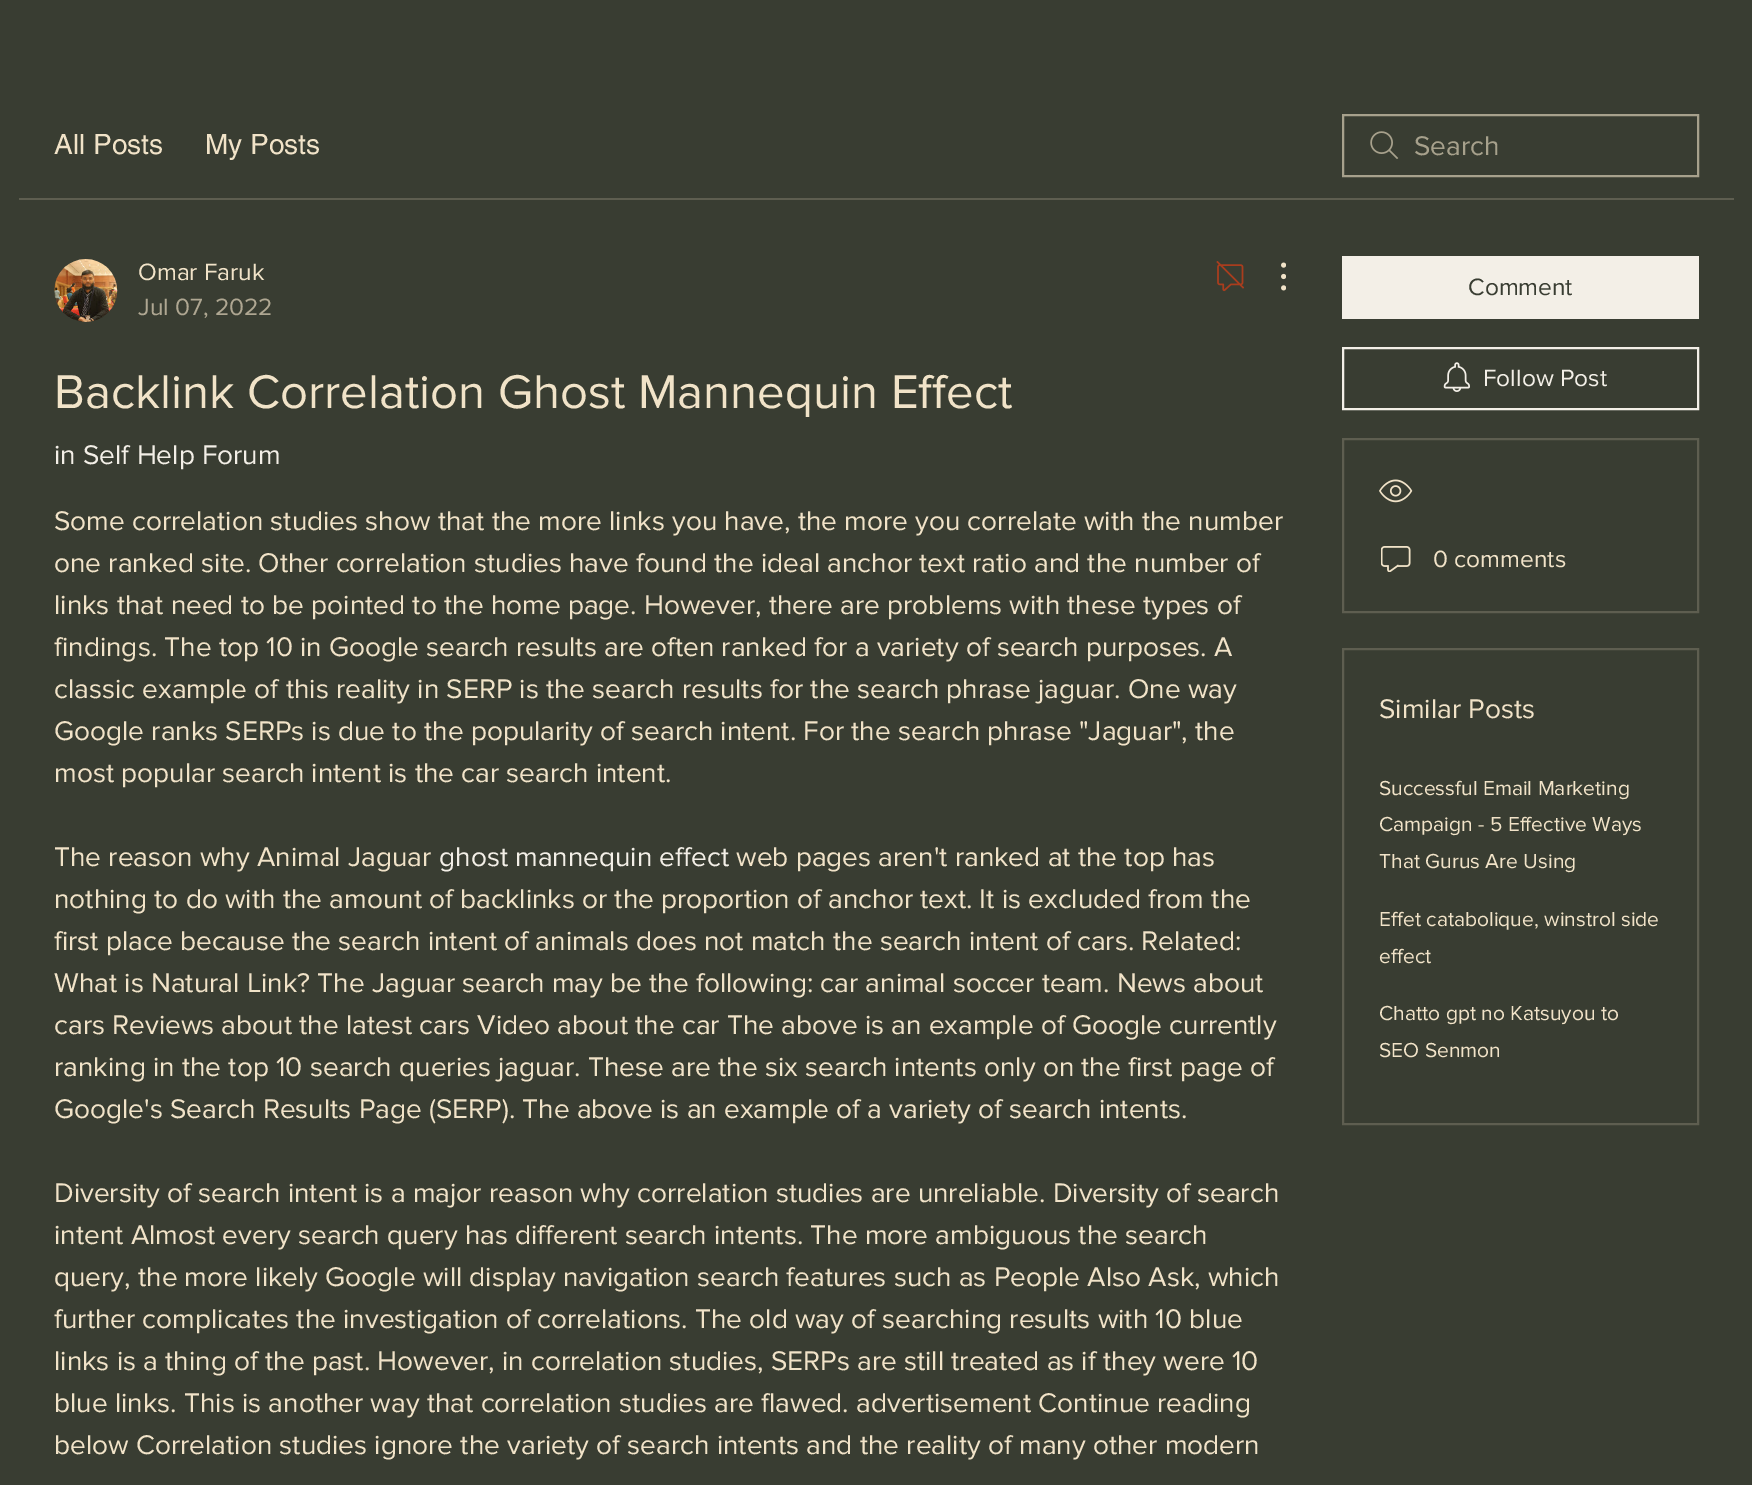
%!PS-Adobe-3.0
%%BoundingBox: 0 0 1752 1485
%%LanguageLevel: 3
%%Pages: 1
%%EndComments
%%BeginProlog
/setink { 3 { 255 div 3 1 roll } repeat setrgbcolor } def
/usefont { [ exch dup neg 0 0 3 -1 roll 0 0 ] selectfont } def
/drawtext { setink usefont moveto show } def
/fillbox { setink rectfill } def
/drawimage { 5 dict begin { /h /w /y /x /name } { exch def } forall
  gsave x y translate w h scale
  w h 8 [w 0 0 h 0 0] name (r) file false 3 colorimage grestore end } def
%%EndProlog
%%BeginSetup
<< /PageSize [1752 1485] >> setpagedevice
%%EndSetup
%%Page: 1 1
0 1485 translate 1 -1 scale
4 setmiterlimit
0 0 1752 1485 57 61 50 fillbox
19 198 1715 2 94 94 80 fillbox
(All Posts) 54 154 /helvetica-Regular 28 241 227 200 drawtext
(My Posts) 205 154 /helvetica-Regular 28 241 227 200 drawtext
(assets/img1.rgb) 1370 131 29 28 drawimage
167 161 140 setink
2 setlinewidth
1343 115 355 61 rectstroke
(Search) 1414 155 /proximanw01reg-Regular 28 167 161 140 drawtext
(assets/img2.rgb) 54 259 64 63 drawimage
(Omar Faruk) 138 280 /proximanw01reg-Regular 24.5 241 227 200 drawtext
(Jul 07, 2022) 138 315 /proximanw01reg-Regular 24.5 175 167 146 drawtext
(assets/img3.rgb) 1216 261 28 31 drawimage
(assets/img4.rgb) 1281 262 5 29 drawimage
(Backlink Correlation Ghost Mannequin Effect) 54 408 /proximanw01reg-Regular 49 241 227 200 drawtext
(in Self Help Forum) 54 464 /proximanw01reg-Regular 28 243 239 231 drawtext
(Some correlation studies show that the more links you have, the more you correlate with the number) 54 530 /proximanw01reg-Regular 28 241 227 200 drawtext
(one ranked site. Other correlation studies have found the ideal anchor text ratio and the number of) 54 572 /proximanw01reg-Regular 28 241 227 200 drawtext
(links that need to be pointed to the home page. However, there are problems with these types of) 54 614 /proximanw01reg-Regular 28 241 227 200 drawtext
(findings. The top 10 in Google search results are often ranked for a variety of search purposes. A) 54 656 /proximanw01reg-Regular 28 241 227 200 drawtext
(classic example of this reality in SERP is the search results for the search phrase jaguar. One way) 54 698 /proximanw01reg-Regular 28 241 227 200 drawtext
(Google ranks SERPs is due to the popularity of search intent. For the search phrase "Jaguar", the) 54 740 /proximanw01reg-Regular 28 241 227 200 drawtext
(most popular search intent is the car search intent.) 54 782 /proximanw01reg-Regular 28 241 227 200 drawtext
(The reason why Animal Jaguar) 54 866 /proximanw01reg-Regular 28 241 227 200 drawtext
(ghost mannequin effect) 439 866 /proximanw01reg-Regular 28 243 239 231 drawtext
(web pages aren't ranked at the top has) 736 866 /proximanw01reg-Regular 28 241 227 200 drawtext
(nothing to do with the amount of backlinks or the proportion of anchor text. It is excluded from the) 54 908 /proximanw01reg-Regular 28 241 227 200 drawtext
(first place because the search intent of animals does not match the search intent of cars. Related:) 54 950 /proximanw01reg-Regular 28 241 227 200 drawtext
(What is Natural Link? The Jaguar search may be the following: car animal soccer team. News about) 54 992 /proximanw01reg-Regular 28 241 227 200 drawtext
(cars Reviews about the latest cars Video about the car The above is an example of Google currently) 54 1034 /proximanw01reg-Regular 28 241 227 200 drawtext
(ranking in the top 10 search queries jaguar. These are the six search intents only on the first page of) 54 1076 /proximanw01reg-Regular 28 241 227 200 drawtext
(Google's Search Results Page \(SERP\). The above is an example of a variety of search intents.) 54 1118 /proximanw01reg-Regular 28 241 227 200 drawtext
(Diversity of search intent is a major reason why correlation studies are unreliable. Diversity of search) 54 1202 /proximanw01reg-Regular 28 241 227 200 drawtext
(intent Almost every search query has different search intents. The more ambiguous the search) 54 1244 /proximanw01reg-Regular 28 241 227 200 drawtext
(query, the more likely Google will display navigation search features such as People Also Ask, which) 54 1286 /proximanw01reg-Regular 28 241 227 200 drawtext
(further complicates the investigation of correlations. The old way of searching results with 10 blue) 54 1328 /proximanw01reg-Regular 28 241 227 200 drawtext
(links is a thing of the past. However, in correlation studies, SERPs are still treated as if they were 10) 54 1370 /proximanw01reg-Regular 28 241 227 200 drawtext
(blue links. This is another way that correlation studies are flawed. advertisement Continue reading) 54 1412 /proximanw01reg-Regular 28 241 227 200 drawtext
(below Correlation studies ignore the variety of search intents and the reality of many other modern) 54 1454 /proximanw01reg-Regular 28 241 227 200 drawtext
1342 256 357 63 243 239 231 fillbox
(Comment) 1468 295 /proximanw01reg-Regular 24.5 57 61 50 drawtext
243 239 231 setink
1343 348 355 61 rectstroke
(assets/img5.rgb) 1443 362 27 30 drawimage
(Follow Post) 1483 386 /proximanw01reg-Regular 24.5 243 239 231 drawtext
94 94 80 setink
1343 439 355 173 rectstroke
(assets/img6.rgb) 1379 479 34 24 drawimage
(assets/img7.rgb) 1381 546 30 26 drawimage
(0 comments) 1433 567 /proximanw01reg-Regular 24.5 241 227 200 drawtext
94 94 80 setink
1343 649 355 475 rectstroke
(Similar Posts) 1379 718 /proximanw01reg-Regular 28 241 227 200 drawtext
(Successful Email Marketing) 1379 795 /proximanw01reg-Regular 21 241 227 200 drawtext
(Campaign - 5 Effective Ways) 1379 831 /proximanw01reg-Regular 21 241 227 200 drawtext
(That Gurus Are Using) 1379 868 /proximanw01reg-Regular 21 241 227 200 drawtext
(Effet catabolique, winstrol side) 1379 926 /proximanw01reg-Regular 21 241 227 200 drawtext
(effect) 1379 963 /proximanw01reg-Regular 21 241 227 200 drawtext
(Chatto gpt no Katsuyou to) 1379 1020 /proximanw01reg-Regular 21 241 227 200 drawtext
(SEO Senmon) 1379 1057 /proximanw01reg-Regular 21 241 227 200 drawtext
showpage
%%EOF
